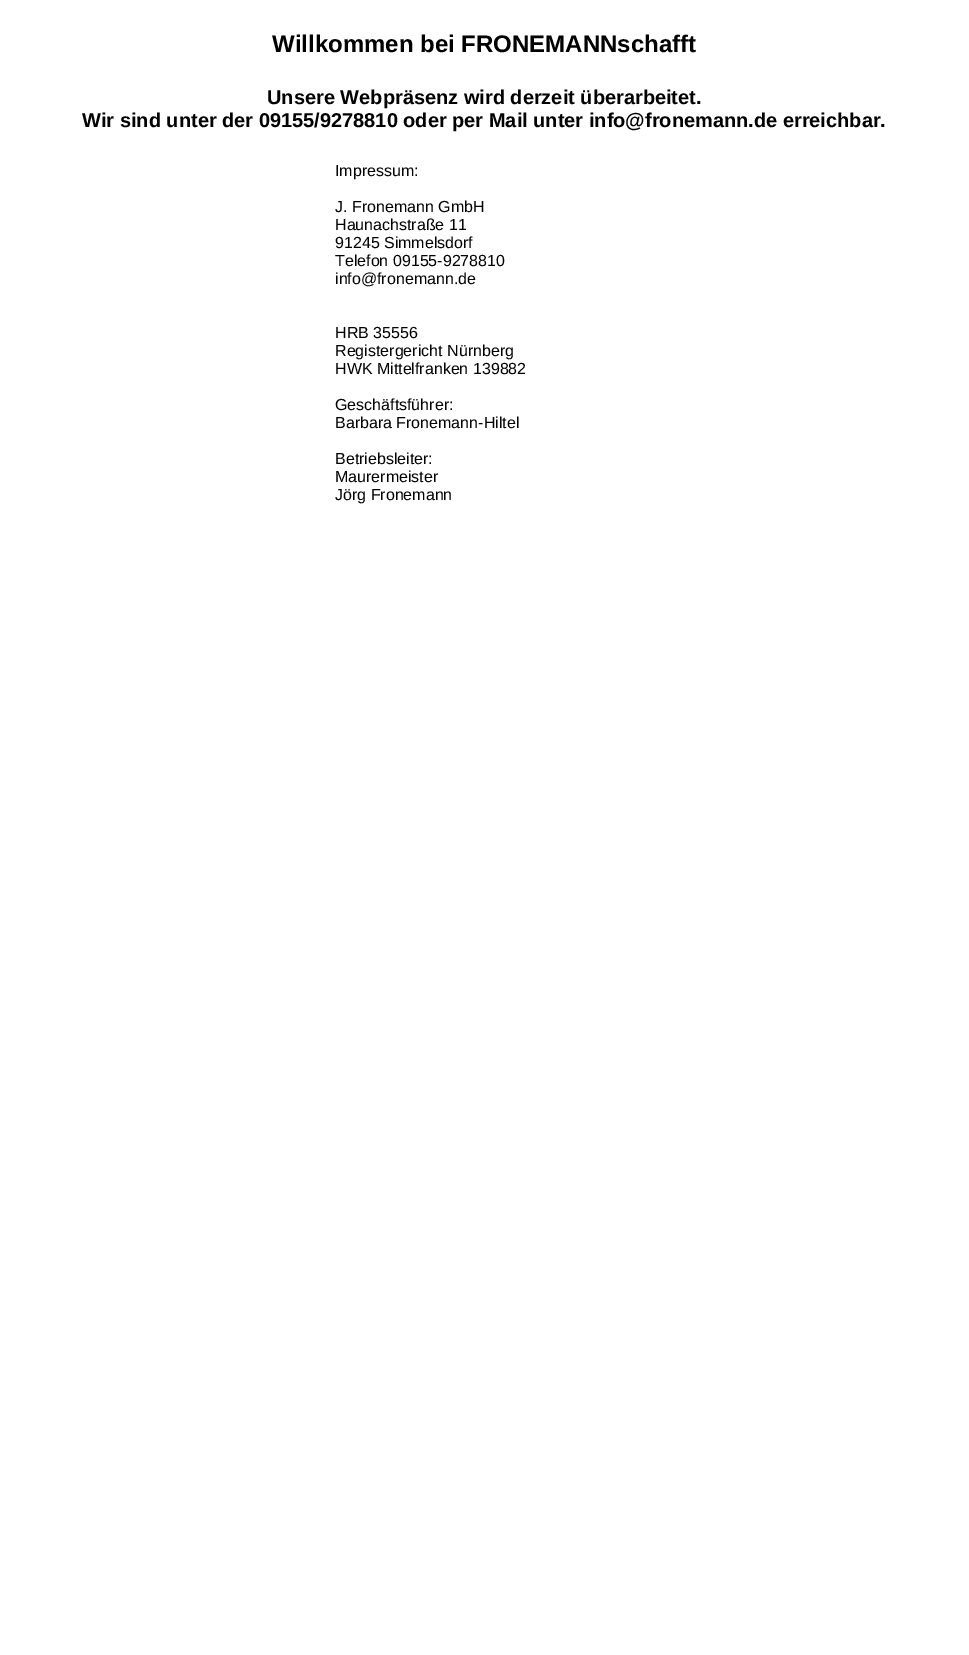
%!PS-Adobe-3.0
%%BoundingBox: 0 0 969 1655
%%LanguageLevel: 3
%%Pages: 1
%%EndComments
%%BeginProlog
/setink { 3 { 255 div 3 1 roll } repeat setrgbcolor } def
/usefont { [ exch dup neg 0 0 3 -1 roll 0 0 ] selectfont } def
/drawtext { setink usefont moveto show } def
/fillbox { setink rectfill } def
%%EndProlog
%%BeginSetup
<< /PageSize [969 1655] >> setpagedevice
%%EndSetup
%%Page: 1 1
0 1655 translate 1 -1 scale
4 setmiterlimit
0 0 969 1655 255 255 255 fillbox
(Willkommen bei FRONEMANNschafft) 272 52 /LiberationSans-Bold 24 0 0 0 drawtext
(Unsere Webpräsenz wird derzeit überarbeitet.) 267 104 /LiberationSans-Bold 20 0 0 0 drawtext
(Wir sind unter der 09155/9278810 oder per Mail unter info@fronemann.de erreichbar.) 82 127 /LiberationSans-Bold 20 0 0 0 drawtext
(Impressum:) 335 176 /LiberationSans-Regular 16 0 0 0 drawtext
(J. Fronemann GmbH) 335 212 /LiberationSans-Regular 16 0 0 0 drawtext
(Haunachstraße 11) 335 230 /LiberationSans-Regular 16 0 0 0 drawtext
(91245 Simmelsdorf) 335 248 /LiberationSans-Regular 16 0 0 0 drawtext
(Telefon 09155-9278810) 335 266 /LiberationSans-Regular 16 0 0 0 drawtext
(info@fronemann.de) 335 284 /LiberationSans-Regular 16 0 0 0 drawtext
(HRB 35556) 335 338 /LiberationSans-Regular 16 0 0 0 drawtext
(Registergericht Nürnberg) 335 356 /LiberationSans-Regular 16 0 0 0 drawtext
(HWK Mittelfranken 139882) 335 374 /LiberationSans-Regular 16 0 0 0 drawtext
(Geschäftsführer:) 335 410 /LiberationSans-Regular 16 0 0 0 drawtext
(Barbara Fronemann-Hiltel) 335 428 /LiberationSans-Regular 16 0 0 0 drawtext
(Betriebsleiter:) 335 464 /LiberationSans-Regular 16 0 0 0 drawtext
(Maurermeister) 335 482 /LiberationSans-Regular 16 0 0 0 drawtext
(Jörg Fronemann) 335 500 /LiberationSans-Regular 16 0 0 0 drawtext
showpage
%%EOF
